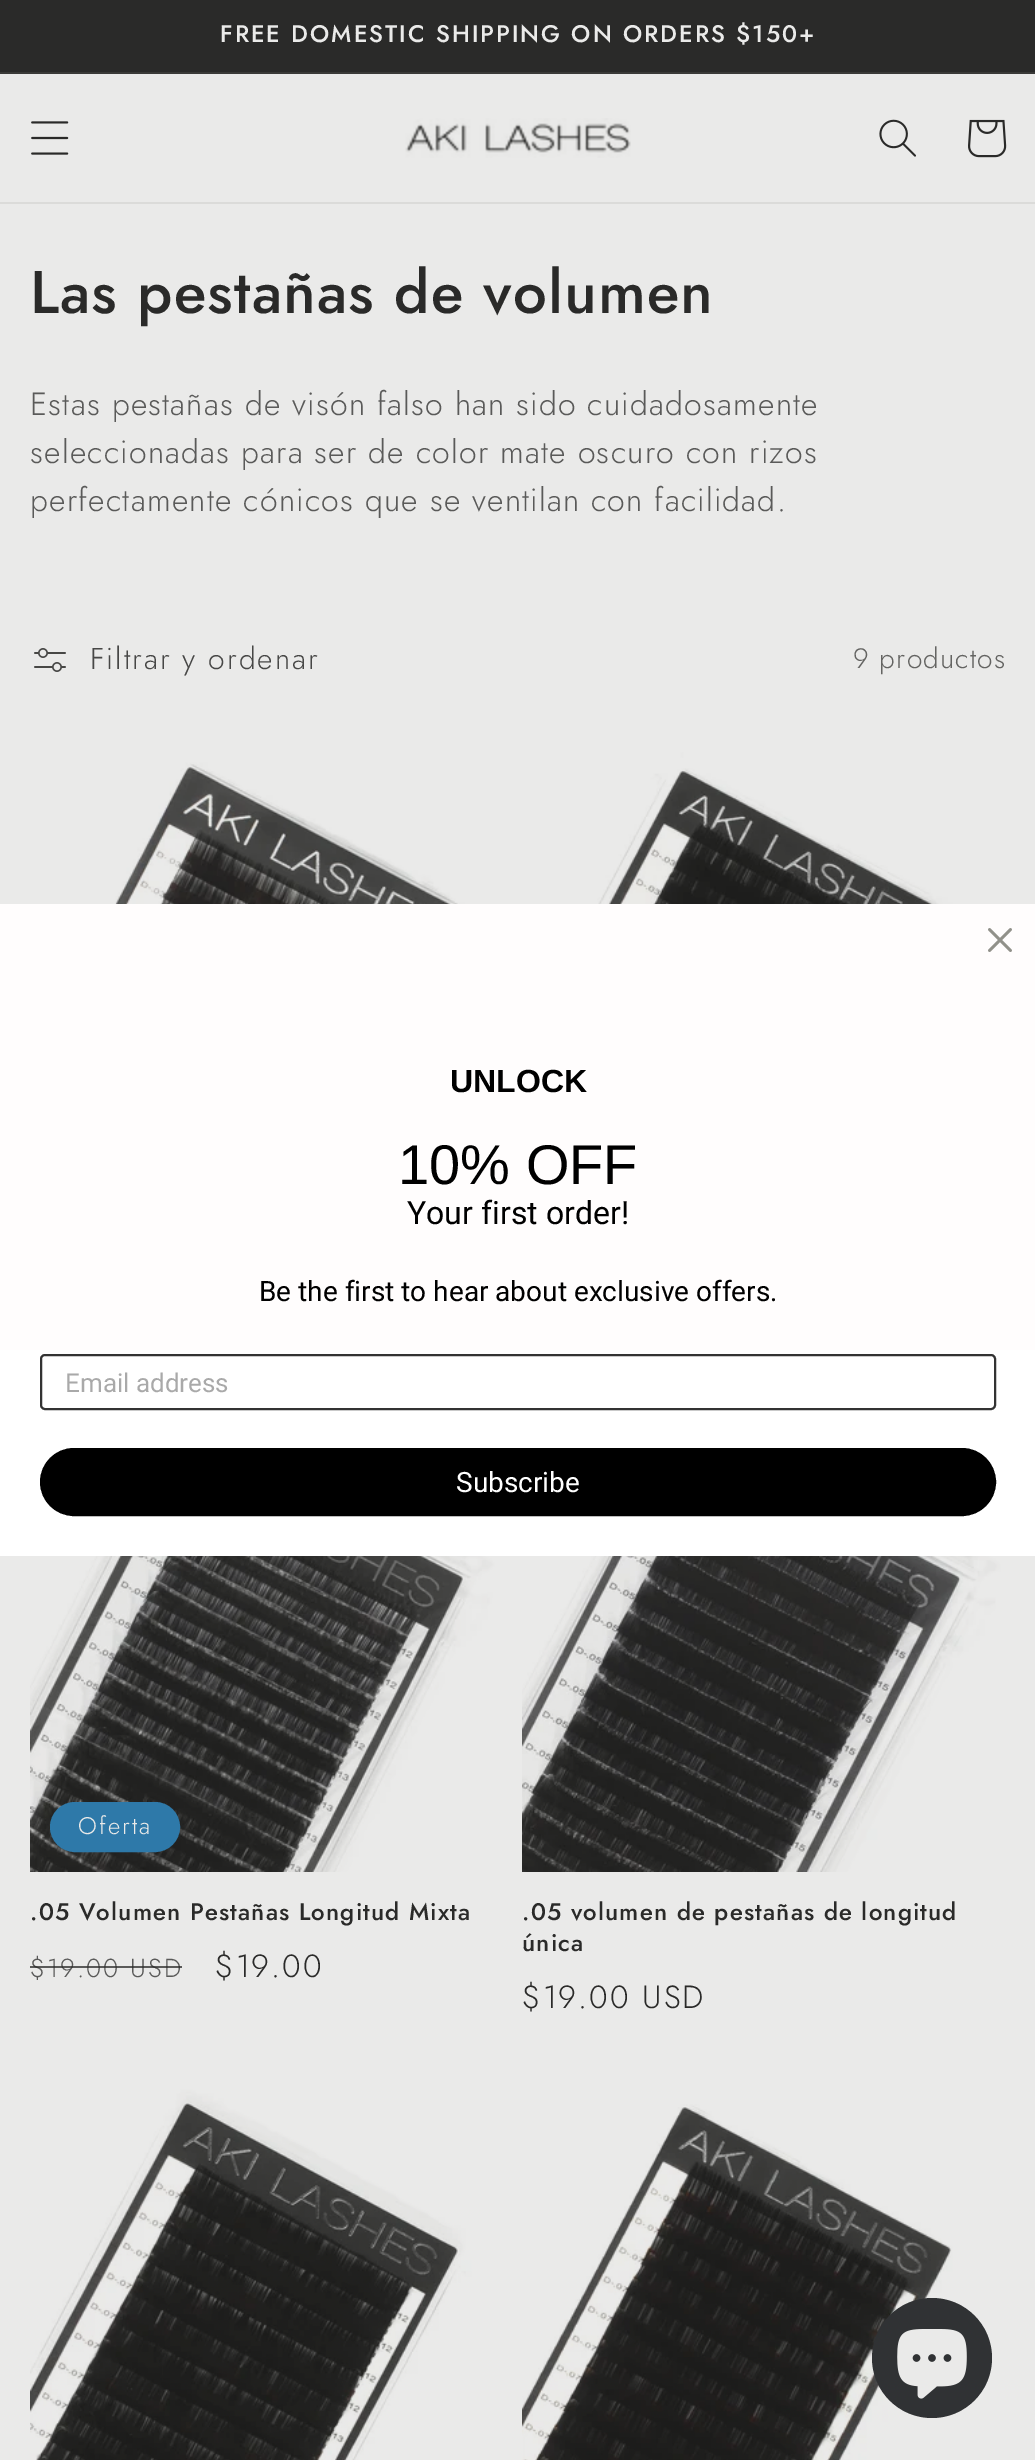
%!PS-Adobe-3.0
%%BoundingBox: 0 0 1035 2460
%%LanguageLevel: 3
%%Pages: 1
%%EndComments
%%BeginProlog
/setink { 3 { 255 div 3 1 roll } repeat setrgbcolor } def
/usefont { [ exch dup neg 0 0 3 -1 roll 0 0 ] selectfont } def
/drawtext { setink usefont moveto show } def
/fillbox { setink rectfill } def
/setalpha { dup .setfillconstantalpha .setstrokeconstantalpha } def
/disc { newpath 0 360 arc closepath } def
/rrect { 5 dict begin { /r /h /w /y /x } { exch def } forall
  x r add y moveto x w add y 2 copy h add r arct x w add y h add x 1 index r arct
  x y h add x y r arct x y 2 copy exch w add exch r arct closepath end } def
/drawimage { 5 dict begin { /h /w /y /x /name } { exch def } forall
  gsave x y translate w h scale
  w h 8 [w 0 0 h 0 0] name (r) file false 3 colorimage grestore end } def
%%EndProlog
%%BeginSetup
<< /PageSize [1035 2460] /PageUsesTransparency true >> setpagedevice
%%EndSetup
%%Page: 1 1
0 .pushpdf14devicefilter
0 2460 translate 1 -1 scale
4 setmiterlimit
0 0 1035 2460 234 234 233 fillbox
0 0 1035 72 42 42 41 fillbox
0 72 1035 2 58 58 56 fillbox
/Jost-Medium 24 usefont
234 234 233 setink
220 42 moveto 2 0 (FREE DOMESTIC SHIPPING ON ORDERS $150+) ashow
0 202 1035 2 219 219 217 fillbox
(assets/img1.rgb) 31 121 38 34 drawimage
(assets/img2.rgb) 405 118 226 40 drawimage
(assets/img3.rgb) 879 119 37 38 drawimage
(assets/img4.rgb) 968 119 39 39 drawimage
/Jost-Medium 60 usefont
42 42 41 setink
30 313 moveto 1.2 0 (Las pestañas de volumen) ashow
/Jost-Light 32 usefont
90 90 89 setink
30 415 moveto 1.2 0 (Estas pestañas de visón falso han sido cuidadosamente) ashow
30 463 moveto 1.2 0 (seleccionadas para ser de color mate oscuro con rizos) ashow
30 511 moveto 1.2 0 (perfectamente cónicos que se ventilan con facilidad.) ashow
(assets/img5.rgb) 34 648 32 24 drawimage
/Jost-Light 30 usefont
71 71 70 setink
90 669 moveto 2 0 (Filtrar y ordenar) ashow
/Jost-Light 28 usefont
100 100 98 setink
853 668 moveto 1.2 0 (9 productos) ashow
(assets/img6.rgb) 30 720 484 184 drawimage
(assets/img7.rgb) 522 720 484 184 drawimage
(assets/img8.rgb) 30 1556 484 316 drawimage
46 121 169 setink
51 1803 128 48 24 rrect gsave fill grestore
2 setlinewidth
stroke
/Jost-Light 24 usefont
234 234 233 setink
78 1834 moveto 2 0 (Oferta) ashow
/Jost-Medium 24 usefont
42 42 41 setink
30 1920 moveto 1.2 0 (.05 Volumen Pestañas Longitud Mixta) ashow
/Jost-Light 26 usefont
90 90 89 setink
30 1977 moveto 2 0 ($19.00 USD) ashow
0.75 setalpha
30 1966 152 2 42 42 41 fillbox
/Jost-Light 32 usefont
1 setalpha
215 1977 moveto 2 0 ($19.00) ashow
(assets/img9.rgb) 522 1556 484 316 drawimage
/Jost-Medium 24 usefont
522 1920 moveto 1.2 0 (.05 volumen de pestañas de longitud) ashow
522 1951 moveto 1.2 0 (única) ashow
/Jost-Light 32 usefont
522 2008 moveto 2 0 ($19.00 USD) ashow
(assets/img10.rgb) 30 2056 484 404 drawimage
(assets/img11.rgb) 522 2056 484 404 drawimage
0 904 1035 446 255 253 253 fillbox
(assets/img12.rgb) 988 928 24 24 drawimage
(UNLOCK) 450 1092 /LiberationSans-Bold 32 0 0 0 drawtext
(10% OFF) 398 1184 /LiberationSans-Regular 56 0 0 0 drawtext
(Your first order!) 407 1224 /Roboto-Regular 32 0 0 0 drawtext
(Be the first to hear about exclusive offers.) 259 1301 /Roboto-Regular 28 0 0 0 drawtext
0 1350 1035 206 255 255 255 fillbox
51 51 51 setink
41 1355 954 54 4 rrect stroke
(Email address) 65 1392 /Roboto-Regular 26 169 169 169 drawtext
0 0 0 setink
41 1449 954 66 33 rrect gsave fill grestore
stroke
(Subscribe) 456 1492 /Roboto-Regular 28 255 255 255 drawtext
48 50 52 setink
932 2358 60 disc fill
(assets/img13.rgb) 897 2329 70 70 drawimage
.poppdf14devicefilter showpage
%%EOF
